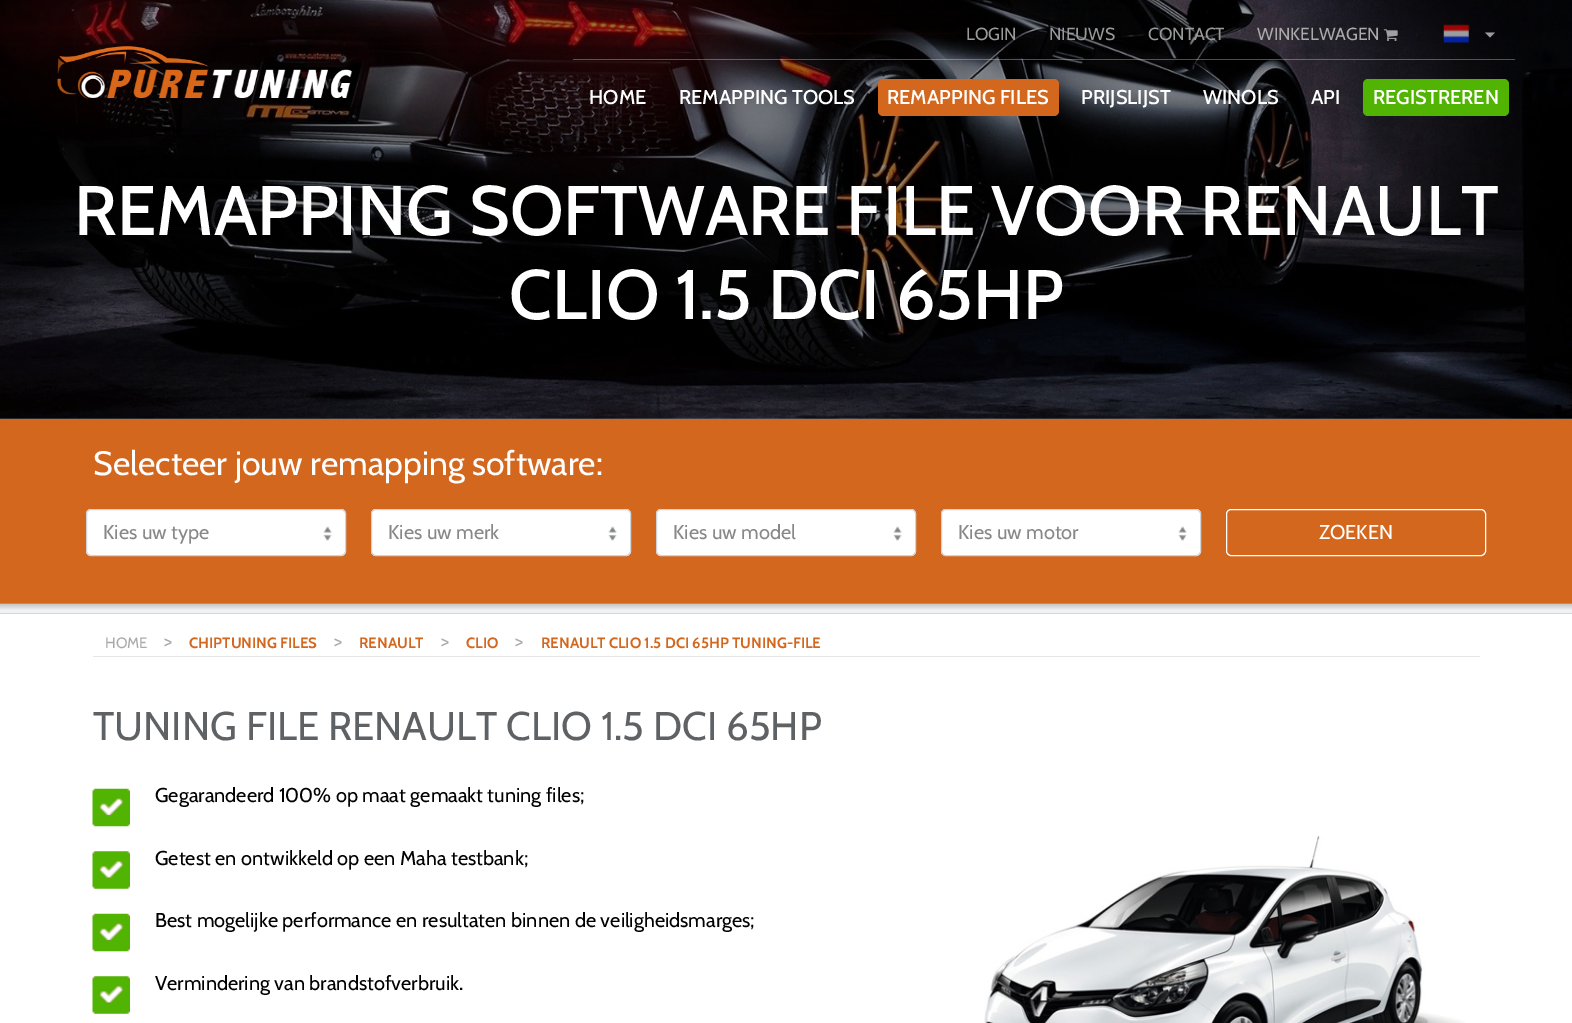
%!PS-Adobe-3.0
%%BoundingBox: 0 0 1572 1023
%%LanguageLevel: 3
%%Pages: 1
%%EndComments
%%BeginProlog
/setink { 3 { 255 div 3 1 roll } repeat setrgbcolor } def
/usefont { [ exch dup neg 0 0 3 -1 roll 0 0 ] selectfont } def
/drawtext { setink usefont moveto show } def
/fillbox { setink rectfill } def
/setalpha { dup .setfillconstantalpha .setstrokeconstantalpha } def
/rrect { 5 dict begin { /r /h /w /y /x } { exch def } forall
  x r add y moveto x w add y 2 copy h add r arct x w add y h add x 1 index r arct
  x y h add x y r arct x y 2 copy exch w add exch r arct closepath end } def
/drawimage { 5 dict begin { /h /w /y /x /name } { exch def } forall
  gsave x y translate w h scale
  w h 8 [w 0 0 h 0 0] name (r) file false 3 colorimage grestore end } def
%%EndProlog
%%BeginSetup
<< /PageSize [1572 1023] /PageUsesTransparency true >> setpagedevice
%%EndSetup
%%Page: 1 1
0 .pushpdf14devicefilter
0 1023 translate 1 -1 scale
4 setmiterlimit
0 0 1572 1023 255 255 255 fillbox
(assets/img4.rgb) 0 0 1572 419 drawimage
(assets/img1.rgb) 57 46 296 53 drawimage
(LOGIN) 966 40 /Cabin-Regular 17.5 154 154 154 drawtext
(NIEUWS) 1049 40 /Cabin-Regular 17.5 154 154 154 drawtext
(CONTACT) 1148 40 /Cabin-Regular 17.5 154 154 154 drawtext
(WINKELWAGEN) 1257 40 /Cabin-Regular 17.5 170 170 170 drawtext
(assets/img2.rgb) 1383 29 15 12 drawimage
(assets/img3.rgb) 1443 24 26 20 drawimage
156 155 157 setink
1485 32.5 moveto 1495 32.5 lineto 1490 37.5 lineto closepath fill
0.3 setalpha
573 59 942 1 255 255 255 fillbox
1 setalpha
(HOME) 589 104 /Cabin-Medium 20 255 255 255 drawtext
(REMAPPING TOOLS) 679 104 /Cabin-Medium 20 255 255 255 drawtext
212 103 30 setink
878 79 181 37 5 rrect fill
(REMAPPING FILES) 887 104 /Cabin-Medium 20 255 255 255 drawtext
(PRIJSLIJST) 1081 104 /Cabin-Medium 20 255 255 255 drawtext
(WINOLS) 1203 104 /Cabin-Medium 20 255 255 255 drawtext
(API) 1311 104 /Cabin-Medium 20 255 255 255 drawtext
81 179 2 setink
1363 79 146 37 5 rrect fill
(REGISTREREN) 1373 104 /Cabin-Medium 20 255 255 255 drawtext
(REMAPPING SOFTWARE FILE VOOR RENAULT) 74 235 /Cabin-Medium 70 255 255 255 drawtext
(CLIO 1.5 DCI 65HP) 509 319 /Cabin-Medium 70 255 255 255 drawtext
0 419 1572 195 212 103 30 fillbox
(assets/img5.rgb) 0 603 1572 11 drawimage
(Selecteer jouw remapping software:) 93 475 /Cabin-Regular 33.75 255 255 255 drawtext
86 509 260 47 5 rrect fill
(assets/img6.rgb) 323 526 9 15 drawimage
206 212 218 setink
86.5 509.5 259 46 4.5 rrect stroke
(Kies uw type) 103 539 /Cabin-Regular 20 136 136 136 drawtext
255 255 255 setink
371 509 260 47 5 rrect fill
(assets/img6.rgb) 608 526 9 15 drawimage
206 212 218 setink
371.5 509.5 259 46 4.5 rrect stroke
(Kies uw merk) 388 539 /Cabin-Regular 20 136 136 136 drawtext
255 255 255 setink
656 509 260 47 5 rrect fill
(assets/img6.rgb) 893 526 9 15 drawimage
206 212 218 setink
656.5 509.5 259 46 4.5 rrect stroke
(Kies uw model) 673 539 /Cabin-Regular 20 136 136 136 drawtext
255 255 255 setink
941 509 260 47 5 rrect fill
(assets/img6.rgb) 1178 526 9 15 drawimage
206 212 218 setink
941.5 509.5 259 46 4.5 rrect stroke
(Kies uw motor) 958 539 /Cabin-Regular 20 136 136 136 drawtext
255 255 255 setink
1226.5 509.5 259 46 4.5 rrect stroke
(ZOEKEN) 1319 539 /Cabin-Regular 20 255 255 255 drawtext
(HOME) 105 648 /Cabin-Regular 15 170 170 170 drawtext
(>) 164 648 /Cabin-Regular 20 170 170 170 drawtext
(CHIPTUNING FILES) 189 648 /Cabin-Bold 15 212 103 30 drawtext
(>) 334 648 /Cabin-Regular 20 170 170 170 drawtext
(RENAULT) 359 648 /Cabin-Bold 15 212 103 30 drawtext
(>) 441 648 /Cabin-Regular 20 170 170 170 drawtext
(CLIO) 466 648 /Cabin-Bold 15 212 103 30 drawtext
(>) 515 648 /Cabin-Regular 20 170 170 170 drawtext
(RENAULT CLIO 1.5 DCI 65HP TUNING-FILE) 541 648 /Cabin-Bold 15 212 103 30 drawtext
93 656 1387 1 230 230 230 fillbox
(TUNING FILE RENAULT CLIO 1.5 DCI 65HP) 93 740 /Cabin-Regular 40 95 98 100 drawtext
(assets/img7.rgb) 92 788 38 39 drawimage
(Gegarandeerd 100% op maat gemaakt tuning files;) 155 802 /Cabin-Regular 20 0 0 0 drawtext
(assets/img8.rgb) 92 851 38 38 drawimage
(Getest en ontwikkeld op een Maha testbank;) 155 865 /Cabin-Regular 20 0 0 0 drawtext
(assets/img7.rgb) 92 913 38 39 drawimage
(Best mogelijke performance en resultaten binnen de veiligheidsmarges;) 155 927 /Cabin-Regular 20 0 0 0 drawtext
(assets/img8.rgb) 92 976 38 38 drawimage
(Vermindering van brandstofverbruik.) 155 990 /Cabin-Regular 20 0 0 0 drawtext
(assets/img9.rgb) 984 835 481 188 drawimage
.poppdf14devicefilter showpage
%%EOF
